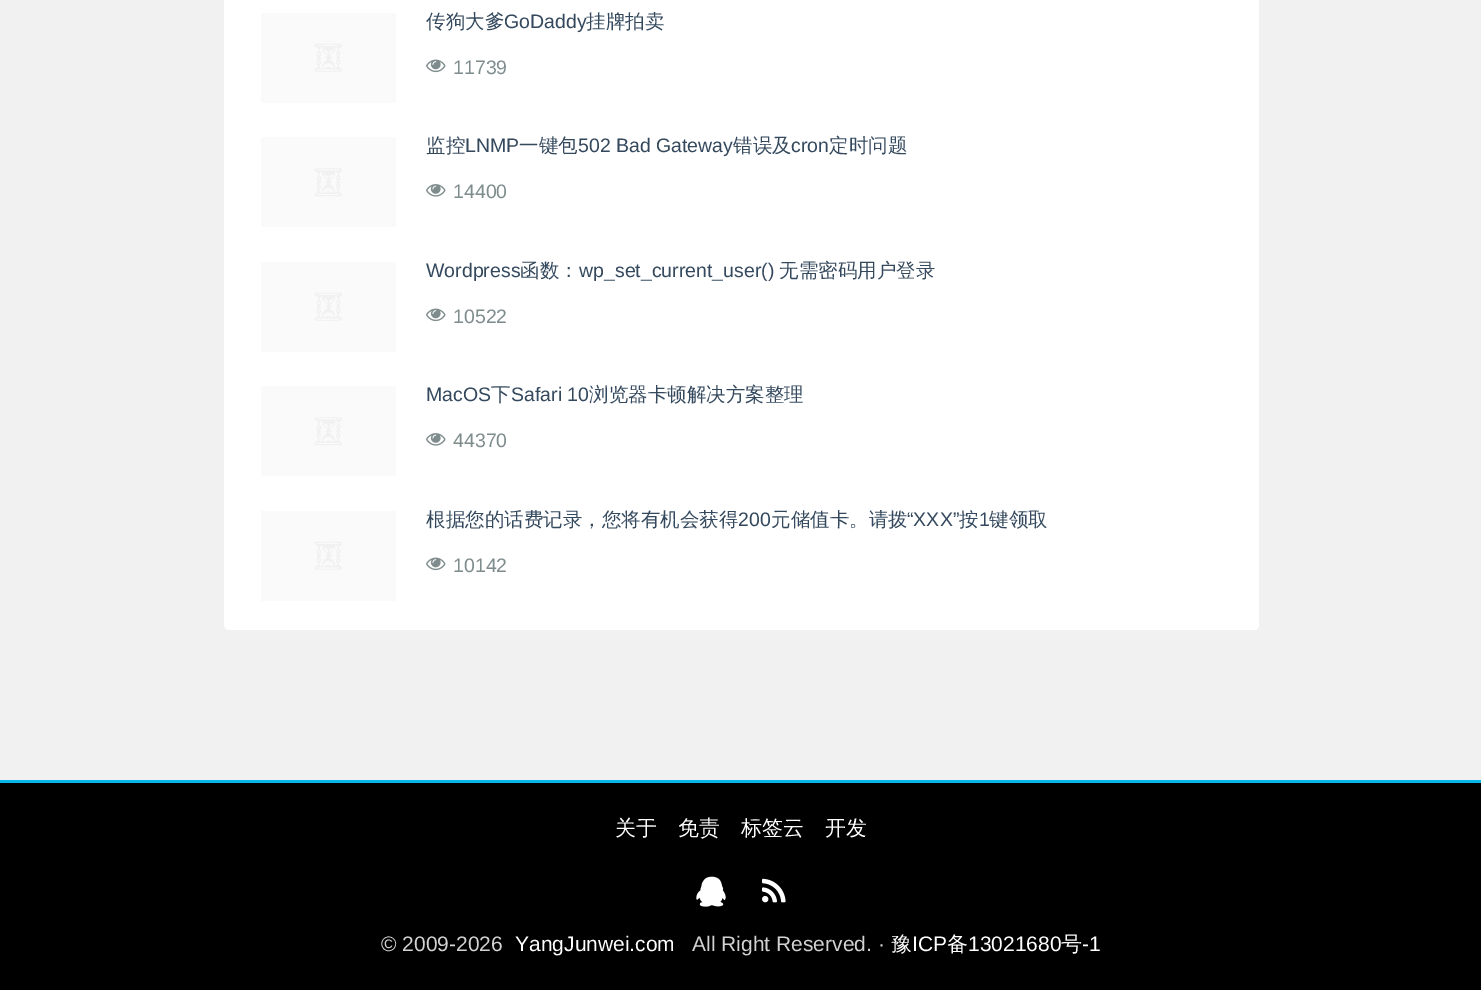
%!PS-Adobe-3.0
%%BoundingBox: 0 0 1481 990
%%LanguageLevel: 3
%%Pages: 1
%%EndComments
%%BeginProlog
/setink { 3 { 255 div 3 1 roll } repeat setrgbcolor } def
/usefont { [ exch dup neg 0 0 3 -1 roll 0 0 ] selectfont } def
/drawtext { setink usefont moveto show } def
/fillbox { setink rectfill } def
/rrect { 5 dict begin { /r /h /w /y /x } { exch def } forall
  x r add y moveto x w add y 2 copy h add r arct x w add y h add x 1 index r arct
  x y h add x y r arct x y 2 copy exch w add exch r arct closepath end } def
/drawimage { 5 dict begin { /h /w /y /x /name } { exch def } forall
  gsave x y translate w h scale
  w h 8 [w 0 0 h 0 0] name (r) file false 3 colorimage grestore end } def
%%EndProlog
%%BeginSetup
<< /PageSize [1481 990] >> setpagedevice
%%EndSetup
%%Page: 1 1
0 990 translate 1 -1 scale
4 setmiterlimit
0 0 1481 990 241 241 241 fillbox
255 255 255 setink
224 -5 1035 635 5 rrect fill
(assets/img1.rgb) 261 13 135 90 drawimage
(传狗大爹) 426 28 /WenQuanYiZenHei-Medium 19.5 52 73 94 drawtext
(GoDaddy) 504 28 /LiberationSans-Regular 19.5 52 73 94 drawtext
(挂牌拍卖) 586 28 /WenQuanYiZenHei-Medium 19.5 52 73 94 drawtext
(assets/img2.rgb) 426 59 20 14 drawimage
(11739) 453 74 /LiberationSans-Regular 19.5 127 140 141 drawtext
(assets/img3.rgb) 261 137 135 90 drawimage
(监控) 426 152 /WenQuanYiZenHei-Medium 19.5 52 73 94 drawtext
(LNMP) 465 152 /LiberationSans-Regular 19.5 52 73 94 drawtext
(一键包) 519 152 /WenQuanYiZenHei-Medium 19.5 52 73 94 drawtext
(502 Bad Gateway) 578 152 /LiberationSans-Regular 19.5 52 73 94 drawtext
(错误及) 733 152 /WenQuanYiZenHei-Medium 19.5 52 73 94 drawtext
(cron) 791 152 /LiberationSans-Regular 19.5 52 73 94 drawtext
(定时问题) 829 152 /WenQuanYiZenHei-Medium 19.5 52 73 94 drawtext
(assets/img4.rgb) 426 184 20 13 drawimage
(14400) 453 198 /LiberationSans-Regular 19.5 127 140 141 drawtext
(assets/img1.rgb) 261 262 135 90 drawimage
(Wordpress) 426 277 /LiberationSans-Regular 19.5 52 73 94 drawtext
(函数：) 520 277 /WenQuanYiZenHei-Medium 19.5 52 73 94 drawtext
(wp_set_current_user\(\)) 579 277 /LiberationSans-Regular 19.5 52 73 94 drawtext
(无需密码用户登录) 779 277 /WenQuanYiZenHei-Medium 19.5 52 73 94 drawtext
(assets/img2.rgb) 426 308 20 14 drawimage
(10522) 453 323 /LiberationSans-Regular 19.5 127 140 141 drawtext
(assets/img3.rgb) 261 386 135 90 drawimage
(MacOS) 426 401 /LiberationSans-Regular 19.5 52 73 94 drawtext
(下) 491 401 /WenQuanYiZenHei-Medium 19.5 52 73 94 drawtext
(Safari 10) 511 401 /LiberationSans-Regular 19.5 52 73 94 drawtext
(浏览器卡顿解决方案整理) 589 401 /WenQuanYiZenHei-Medium 19.5 52 73 94 drawtext
(assets/img4.rgb) 426 433 20 13 drawimage
(44370) 453 447 /LiberationSans-Regular 19.5 127 140 141 drawtext
(assets/img1.rgb) 261 511 135 90 drawimage
(根据您的话费记录，您将有机会获得) 426 526 /WenQuanYiZenHei-Medium 19.5 52 73 94 drawtext
(200) 738 526 /LiberationSans-Regular 19.5 52 73 94 drawtext
(元储值卡。请拨) 771 526 /WenQuanYiZenHei-Medium 19.5 52 73 94 drawtext
(“XXX”) 907 526 /LiberationSans-Regular 19.5 52 73 94 drawtext
(按) 959 526 /WenQuanYiZenHei-Medium 19.5 52 73 94 drawtext
(1) 979 526 /LiberationSans-Regular 19.5 52 73 94 drawtext
(键领取) 989 526 /WenQuanYiZenHei-Medium 19.5 52 73 94 drawtext
(assets/img2.rgb) 426 557 20 14 drawimage
(10142) 453 572 /LiberationSans-Regular 19.5 127 140 141 drawtext
0 780 1481 3 7 182 232 fillbox
0 783 1481 207 0 0 0 fillbox
(关于) 615 835 /WenQuanYiZenHei-Medium 21 255 255 255 drawtext
(免责) 678 835 /WenQuanYiZenHei-Medium 21 255 255 255 drawtext
(标签云) 741 835 /WenQuanYiZenHei-Medium 21 255 255 255 drawtext
(开发) 825 835 /WenQuanYiZenHei-Medium 21 255 255 255 drawtext
(assets/img5.rgb) 696 876 30 31 drawimage
(assets/img6.rgb) 762 878 24 25 drawimage
(© 2009-2026) 381 951 /LiberationSans-Regular 21 210 210 210 drawtext
(YangJunwei.com) 515 951 /LiberationSans-Regular 21 255 255 255 drawtext
(All Right Reserved. ·) 692 951 /LiberationSans-Regular 21 210 210 210 drawtext
(豫) 891 951 /WenQuanYiZenHei-Medium 21 255 255 255 drawtext
(ICP) 912 951 /LiberationSans-Regular 21 255 255 255 drawtext
(备) 947 951 /WenQuanYiZenHei-Medium 21 255 255 255 drawtext
(13021680) 968 951 /LiberationSans-Regular 21 255 255 255 drawtext
(号) 1061 951 /WenQuanYiZenHei-Medium 21 255 255 255 drawtext
(-1) 1082 951 /LiberationSans-Regular 21 255 255 255 drawtext
showpage
%%EOF
